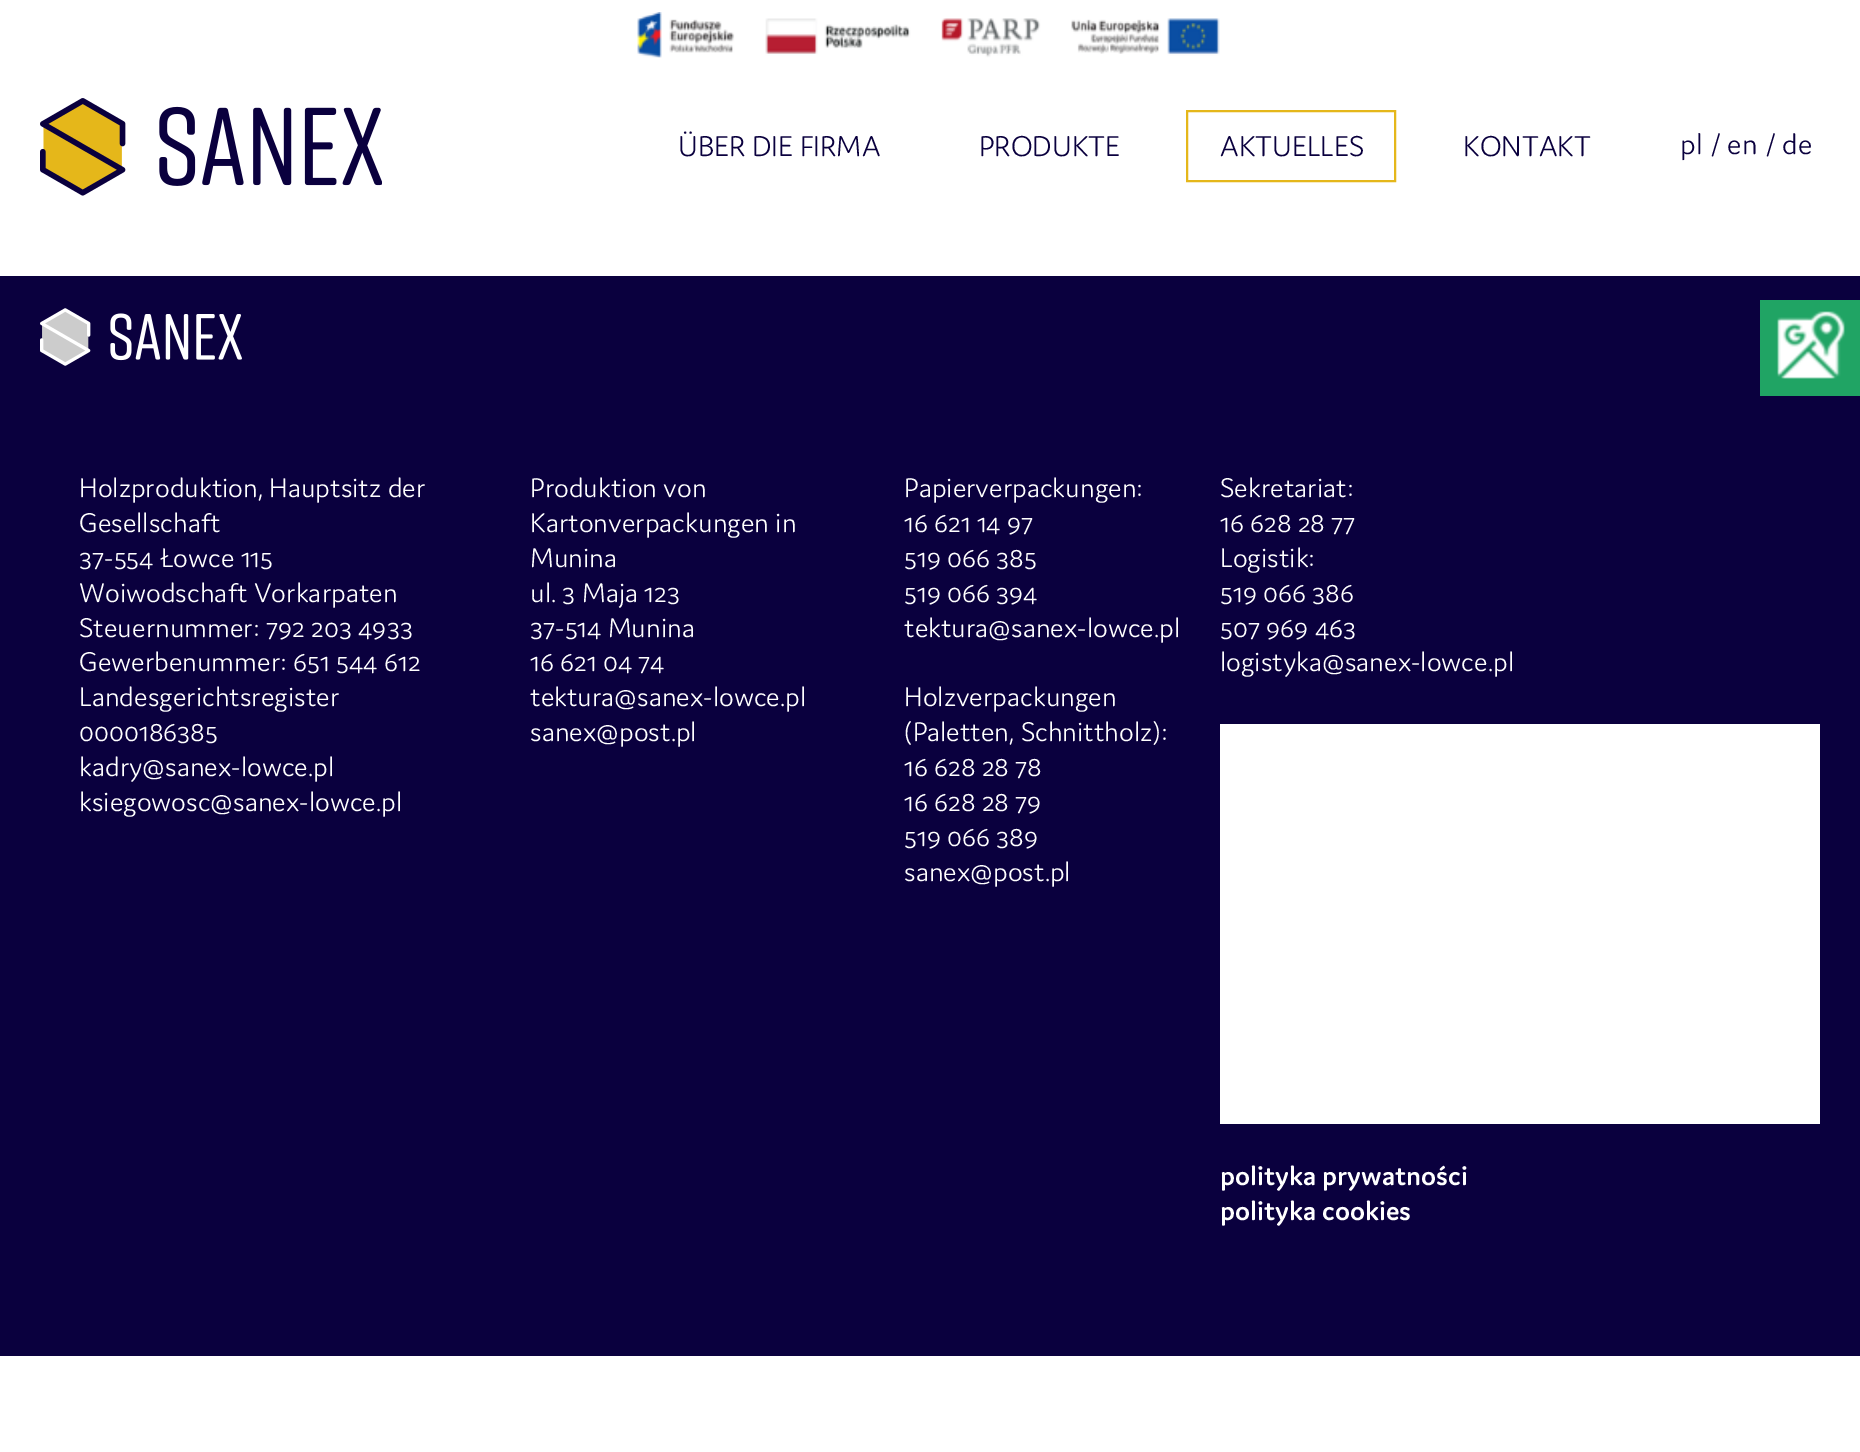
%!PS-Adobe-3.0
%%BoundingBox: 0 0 1860 1452
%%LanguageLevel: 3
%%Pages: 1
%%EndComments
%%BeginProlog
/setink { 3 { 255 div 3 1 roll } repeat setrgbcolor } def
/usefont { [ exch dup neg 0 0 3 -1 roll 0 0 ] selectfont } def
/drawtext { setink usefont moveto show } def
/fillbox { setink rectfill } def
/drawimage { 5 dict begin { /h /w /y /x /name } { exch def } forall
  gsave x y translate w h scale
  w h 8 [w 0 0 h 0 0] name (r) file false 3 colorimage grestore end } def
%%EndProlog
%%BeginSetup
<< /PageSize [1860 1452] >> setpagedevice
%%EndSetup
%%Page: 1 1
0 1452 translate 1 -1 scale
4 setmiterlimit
0 0 1860 1452 255 255 255 fillbox
(assets/img1.rgb) 637 12 583 46 drawimage
(assets/img2.rgb) 40 98 342 98 drawimage
(ÜBER DIE FIRMA) 678 156 /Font-Regular 30.5 10 0 62 drawtext
(PRODUKTE) 979 156 /Font-Regular 30.5 10 0 62 drawtext
229 183 26 setink
2 setlinewidth
1187 111 208 70 rectstroke
(AKTUELLES) 1220 156 /Font-Regular 30.5 10 0 62 drawtext
(KONTAKT) 1463 156 /Font-Regular 30.5 10 0 62 drawtext
(pl) 1680 154 /Font-Regular 30.5 10 0 62 drawtext
(/ en) 1710 154 /Font-Regular 30.5 10 0 62 drawtext
(/ de) 1765 154 /Font-Regular 30.5 10 0 62 drawtext
0 276 1860 1080 10 0 62 fillbox
1760 300 100 96 32 164 100 fillbox
(assets/img3.rgb) 1777 311 68 68 drawimage
(assets/img4.rgb) 40 308 202 58 drawimage
(Holzproduktion, Hauptsitz der) 79 497 /Font-Regular 28.75 255 255 255 drawtext
(Gesellschaft) 79 532 /Font-Regular 28.75 255 255 255 drawtext
(37-554 Łowce 115) 79 567 /Font-Regular 28.75 255 255 255 drawtext
(Woiwodschaft Vorkarpaten) 79 602 /Font-Regular 28.75 255 255 255 drawtext
(Steuernummer: 792 203 4933) 79 637 /Font-Regular 28.75 255 255 255 drawtext
(Gewerbenummer: 651 544 612) 79 671 /Font-Regular 28.75 255 255 255 drawtext
(Landesgerichtsregister) 79 706 /Font-Regular 28.75 255 255 255 drawtext
(0000186385) 79 741 /Font-Regular 28.75 255 255 255 drawtext
(kadry@sanex-lowce.pl) 79 776 /Font-Regular 28.75 255 255 255 drawtext
(ksiegowosc@sanex-lowce.pl) 79 811 /Font-Regular 28.75 255 255 255 drawtext
(Produktion von) 530 497 /Font-Regular 28.75 255 255 255 drawtext
(Kartonverpackungen in) 530 532 /Font-Regular 28.75 255 255 255 drawtext
(Munina) 530 567 /Font-Regular 28.75 255 255 255 drawtext
(ul. 3 Maja 123) 530 602 /Font-Regular 28.75 255 255 255 drawtext
(37-514 Munina) 530 637 /Font-Regular 28.75 255 255 255 drawtext
(16 621 04 74) 530 671 /Font-Regular 28.75 255 255 255 drawtext
(tektura@sanex-lowce.pl) 530 706 /Font-Regular 28.75 255 255 255 drawtext
(sanex@post.pl) 530 741 /Font-Regular 28.75 255 255 255 drawtext
(Papierverpackungen:) 904 497 /Font-Regular 28.75 255 255 255 drawtext
(16 621 14 97) 904 532 /Font-Regular 28.75 255 255 255 drawtext
(519 066 385) 904 567 /Font-Regular 28.75 255 255 255 drawtext
(519 066 394) 904 602 /Font-Regular 28.75 255 255 255 drawtext
(tektura@sanex-lowce.pl) 904 637 /Font-Regular 28.75 255 255 255 drawtext
(Holzverpackungen) 904 706 /Font-Regular 28.75 255 255 255 drawtext
(\(Paletten, Schnittholz\):) 904 741 /Font-Regular 28.75 255 255 255 drawtext
(16 628 28 78) 904 776 /Font-Regular 28.75 255 255 255 drawtext
(16 628 28 79) 904 811 /Font-Regular 28.75 255 255 255 drawtext
(519 066 389) 904 846 /Font-Regular 28.75 255 255 255 drawtext
(sanex@post.pl) 904 881 /Font-Regular 28.75 255 255 255 drawtext
(Sekretariat:) 1220 497 /Font-Regular 28.75 255 255 255 drawtext
(16 628 28 77) 1220 532 /Font-Regular 28.75 255 255 255 drawtext
(Logistik:) 1220 567 /Font-Regular 28.75 255 255 255 drawtext
(519 066 386) 1220 602 /Font-Regular 28.75 255 255 255 drawtext
(507 969 463) 1220 637 /Font-Regular 28.75 255 255 255 drawtext
(logistyka@sanex-lowce.pl) 1220 671 /Font-Regular 28.75 255 255 255 drawtext
1220 724 600 400 255 255 255 fillbox
(polityka prywatności) 1220 1185 /Font-Medium 28.75 255 255 255 drawtext
(polityka cookies) 1220 1220 /Font-Medium 28.75 255 255 255 drawtext
showpage
%%EOF
